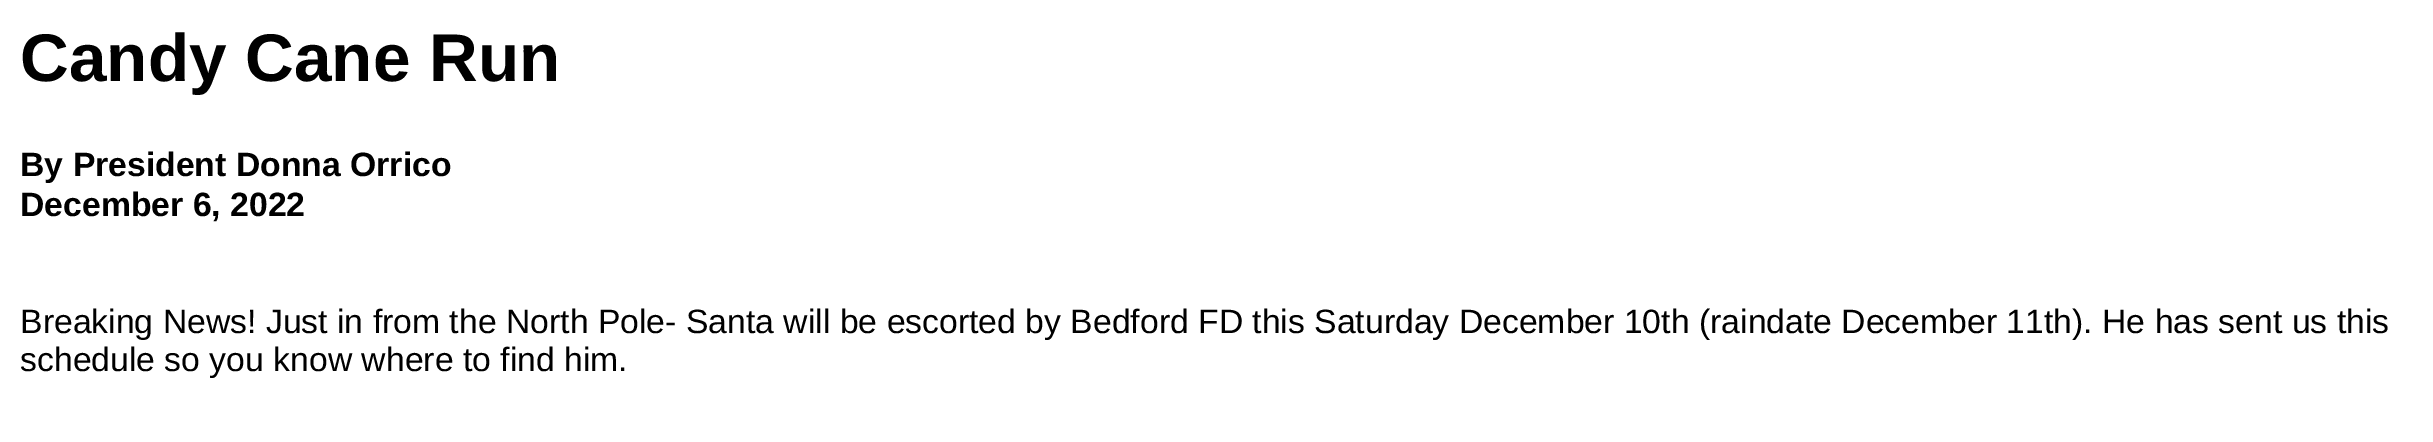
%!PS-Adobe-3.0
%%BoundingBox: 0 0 2433 442
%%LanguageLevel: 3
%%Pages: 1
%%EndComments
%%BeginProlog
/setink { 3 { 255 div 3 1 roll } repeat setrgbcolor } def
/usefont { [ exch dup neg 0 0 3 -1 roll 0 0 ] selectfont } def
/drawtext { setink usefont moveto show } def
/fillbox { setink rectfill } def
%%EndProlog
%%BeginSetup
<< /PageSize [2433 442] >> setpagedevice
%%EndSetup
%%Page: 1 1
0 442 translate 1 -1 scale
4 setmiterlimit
0 0 2433 442 255 255 255 fillbox
(Candy Cane Run) 20 81 /LiberationSans-Bold 67.5 0 0 0 drawtext
(By President Donna Orrico) 20 176 /LiberationSans-Bold 33.75 0 0 0 drawtext
(December 6, 2022) 20 216 /LiberationSans-Bold 33.75 0 0 0 drawtext
(Breaking News! Just in from the North Pole- Santa will be escorted by Bedford FD this Saturday December 10th \(raindate December 11th\). He has sent us this) 20 333 /LiberationSans-Regular 33.75 0 0 0 drawtext
(schedule so you know where to find him.) 20 371 /LiberationSans-Regular 33.75 0 0 0 drawtext
showpage
%%EOF
